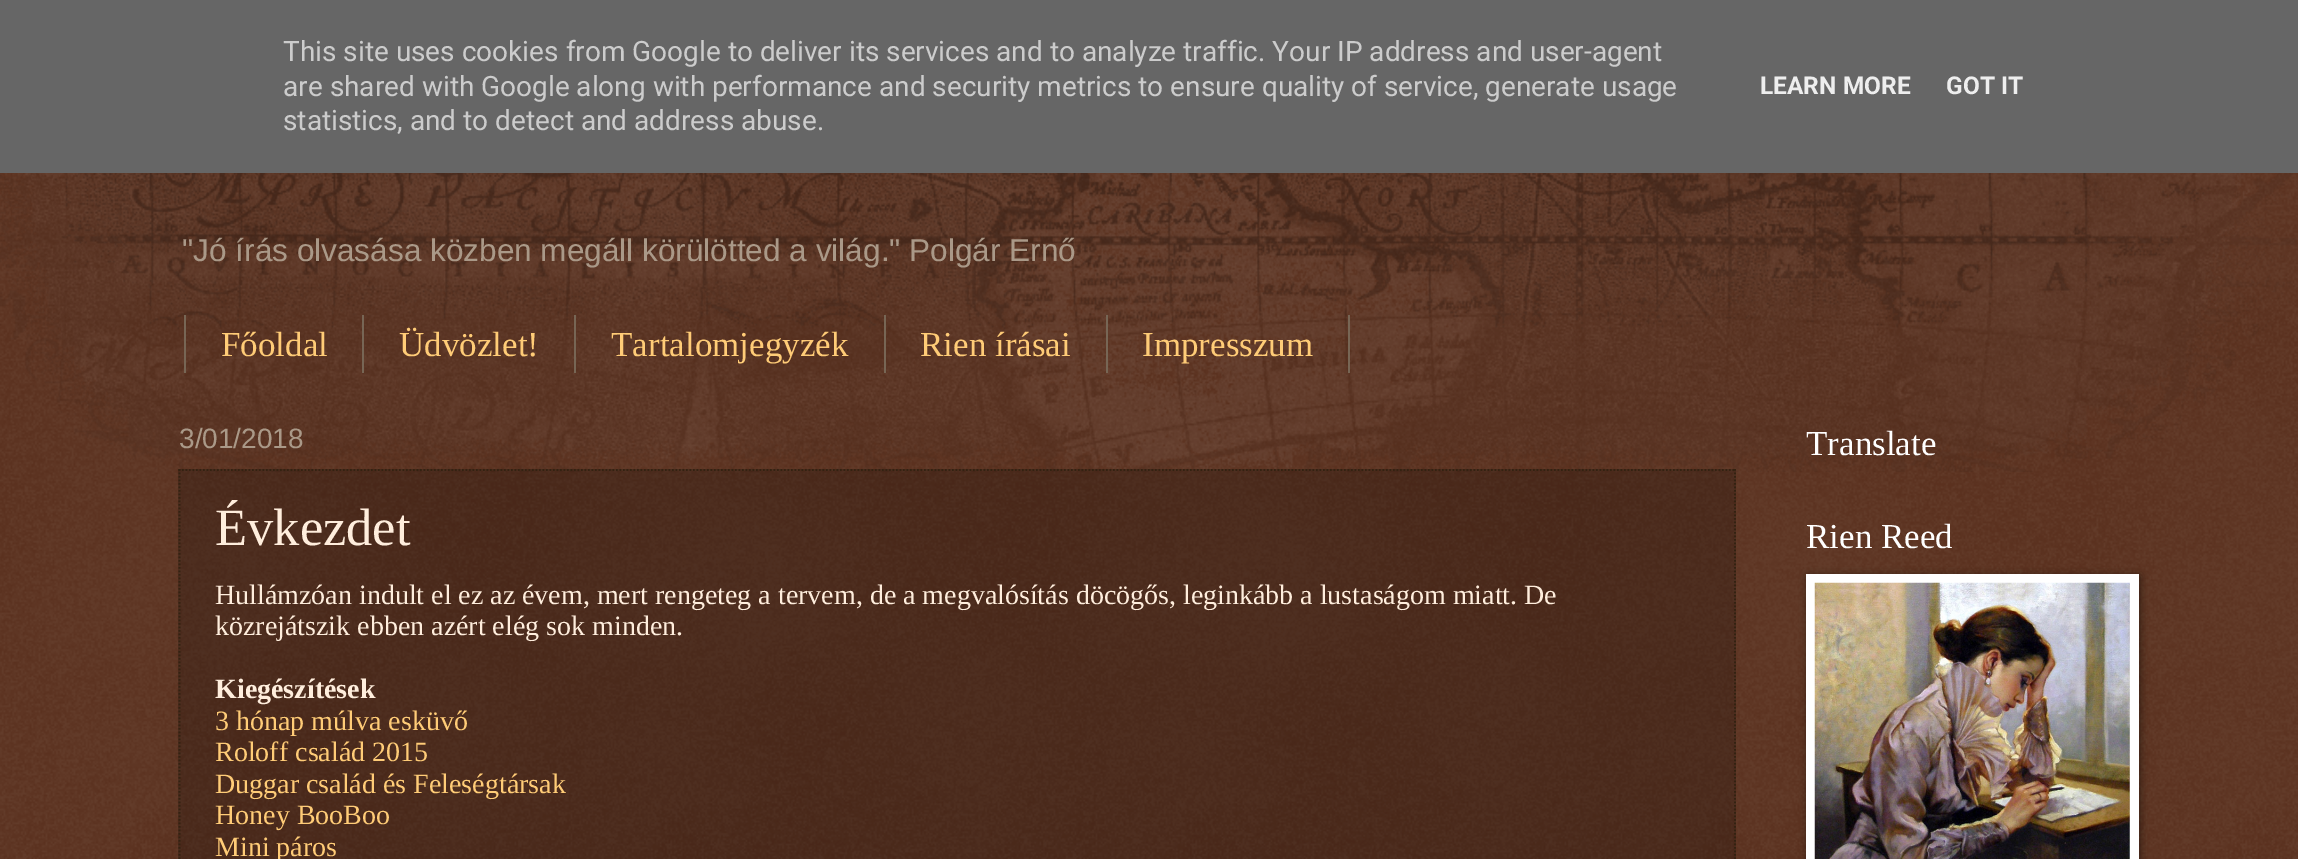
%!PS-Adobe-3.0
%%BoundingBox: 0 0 2298 859
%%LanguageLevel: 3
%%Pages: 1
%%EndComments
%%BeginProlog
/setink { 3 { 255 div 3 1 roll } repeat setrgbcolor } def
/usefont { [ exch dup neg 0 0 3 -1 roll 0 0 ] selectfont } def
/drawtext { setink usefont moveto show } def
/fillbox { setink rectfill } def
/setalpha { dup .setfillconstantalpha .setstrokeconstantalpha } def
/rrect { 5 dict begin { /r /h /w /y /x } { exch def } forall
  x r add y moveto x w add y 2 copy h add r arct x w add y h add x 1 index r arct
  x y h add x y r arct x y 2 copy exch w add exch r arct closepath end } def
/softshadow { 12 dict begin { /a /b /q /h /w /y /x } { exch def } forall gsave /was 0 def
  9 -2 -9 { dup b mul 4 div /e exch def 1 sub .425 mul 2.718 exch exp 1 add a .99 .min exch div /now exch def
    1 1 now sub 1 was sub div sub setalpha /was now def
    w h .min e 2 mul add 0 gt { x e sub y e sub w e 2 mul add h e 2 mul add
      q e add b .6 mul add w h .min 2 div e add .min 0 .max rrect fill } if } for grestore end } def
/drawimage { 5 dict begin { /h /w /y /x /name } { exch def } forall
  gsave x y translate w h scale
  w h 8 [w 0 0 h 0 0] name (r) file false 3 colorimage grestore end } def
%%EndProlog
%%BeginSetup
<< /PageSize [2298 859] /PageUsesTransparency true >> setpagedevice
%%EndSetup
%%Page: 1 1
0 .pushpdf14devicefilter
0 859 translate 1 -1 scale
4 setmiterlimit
0 0 2298 859 68 21 0 fillbox
(assets/img1.rgb) 0 173 2298 686 drawimage
0 0 2298 173 102 102 102 fillbox
(This site uses cookies from Google to deliver its services and to analyze traffic. Your IP address and user-agent) 283 61 /Roboto-Regular 28 204 204 204 drawtext
(are shared with Google along with performance and security metrics to ensure quality of service, generate usage) 283 96 /Roboto-Regular 28 204 204 204 drawtext
(statistics, and to detect and address abuse.) 283 130 /Roboto-Regular 28 204 204 204 drawtext
(LEARN MORE) 1760 94 /Roboto-Bold 24.5 238 238 238 drawtext
(GOT IT) 1946 94 /Roboto-Bold 24.5 238 238 238 drawtext
(assets/img2.rgb) 0 173 2298 299 drawimage
("Jó írás olvasása közben megáll körülötted a világ." Polgár Ernő) 182 261 /LiberationSans-Regular 31.55 170 153 136 drawtext
362 315 2 58 119 102 85 fillbox
184 315 2 58 119 102 85 fillbox
(Főoldal) 221 356 /LiberationSerif-Regular 35 255 204 119 drawtext
574 315 2 58 119 102 85 fillbox
(Üdvözlet!) 399 356 /LiberationSerif-Regular 35 255 204 119 drawtext
884 315 2 58 119 102 85 fillbox
(Tartalomjegyzék) 611 356 /LiberationSerif-Regular 35 255 204 119 drawtext
1106 315 2 58 119 102 85 fillbox
(Rien írásai) 920 356 /LiberationSerif-Regular 35 255 204 119 drawtext
1348 315 2 58 119 102 85 fillbox
(Impresszum) 1142 356 /LiberationSerif-Regular 35 255 204 119 drawtext
(3/01/2018) 179 448 /LiberationSans-Regular 28 170 153 136 drawtext
0.2 setalpha
178 469 1558 390 0 0 0 fillbox
1 setalpha
51 34 17 setink
1.8 setlinewidth
[1.75 1.75] 0 setdash
178.5 470 moveto 1736 470 lineto stroke
1735 469 moveto 1735 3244.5 lineto stroke
179.5 469 moveto 179.5 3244.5 lineto stroke
(Évkezdet) 215 545 /LiberationSerif-Regular 52.5 255 238 221 drawtext
(Hullámzóan indult el ez az évem, mert rengeteg a tervem, de a megvalósítás döcögős, leginkább a lustaságom miatt. De) 215 604 /LiberationSerif-Regular 28 255 238 221 drawtext
(közrejátszik ebben azért elég sok minden.) 215 635 /LiberationSerif-Regular 28 255 238 221 drawtext
(Kiegészítések) 215 698 /LiberationSerif-Bold 28 255 238 221 drawtext
(3 hónap múlva esküvő) 215 730 /LiberationSerif-Regular 28 255 204 119 drawtext
(Roloff család 2015) 215 761 /LiberationSerif-Regular 28 255 204 119 drawtext
(Duggar család és Feleségtársak) 215 793 /LiberationSerif-Regular 28 255 204 119 drawtext
(Honey BooBoo) 215 824 /LiberationSerif-Regular 28 255 204 119 drawtext
(Mini páros) 215 856 /LiberationSerif-Regular 28 255 204 119 drawtext
(Translate) 1806 455 /LiberationSerif-Regular 35 255 255 255 drawtext
(Rien Reed) 1806 548 /LiberationSerif-Regular 35 255 255 255 drawtext
0 0 0 setink
1808 576 332 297 0 4.5 0.5 softshadow
1806 574 333 285 255 255 255 fillbox
(assets/img3.rgb) 1814 582 316 277 drawimage
.poppdf14devicefilter showpage
%%EOF
